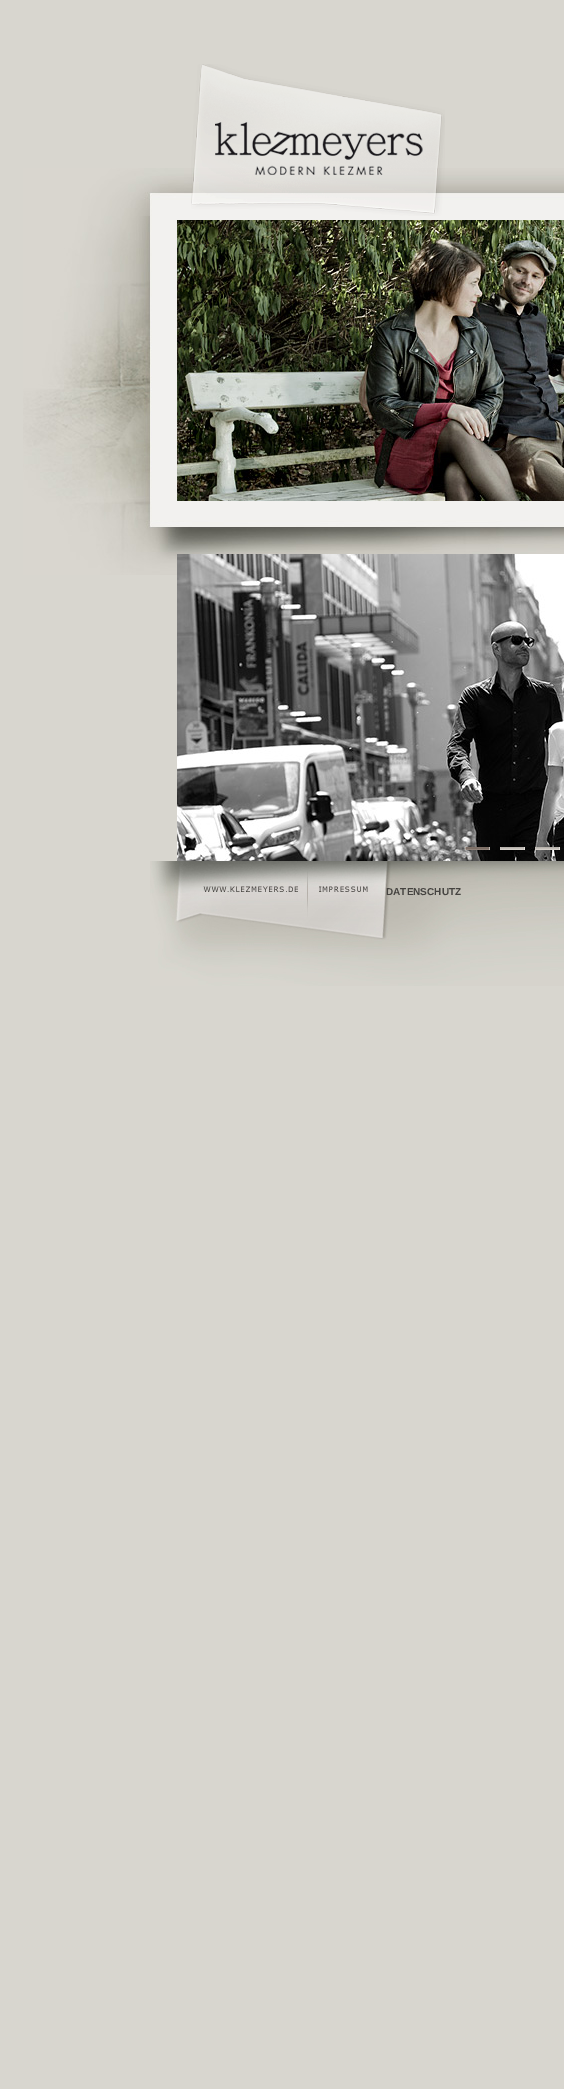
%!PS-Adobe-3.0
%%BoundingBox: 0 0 564 2089
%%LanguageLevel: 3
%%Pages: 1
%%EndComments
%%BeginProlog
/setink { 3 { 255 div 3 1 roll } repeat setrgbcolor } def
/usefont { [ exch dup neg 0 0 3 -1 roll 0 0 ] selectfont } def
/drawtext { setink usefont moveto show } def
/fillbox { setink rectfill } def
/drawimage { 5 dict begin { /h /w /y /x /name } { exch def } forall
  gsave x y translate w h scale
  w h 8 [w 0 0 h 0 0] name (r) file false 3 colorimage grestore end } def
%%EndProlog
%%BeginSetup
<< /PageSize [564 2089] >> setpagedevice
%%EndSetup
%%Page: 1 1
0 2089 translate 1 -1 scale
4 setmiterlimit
0 0 564 2089 216 214 207 fillbox
(assets/img1.rgb) 23 168 541 407 drawimage
(assets/img2.rgb) 191 64 254 152 drawimage
(assets/img3.rgb) 177 220 387 281 drawimage
(assets/img4.rgb) 177 554 387 307 drawimage
(assets/img5.rgb) 465 847 25 3 drawimage
(assets/img6.rgb) 500 847 25 3 drawimage
(assets/img6.rgb) 535 847 25 3 drawimage
(assets/img7.rgb) 150 861 414 125 drawimage
(assets/img8.rgb) 203 886 95 6 drawimage
(assets/img9.rgb) 319 886 49 6 drawimage
(DATENSCHUTZ) 386 895 /LiberationSans-Bold 10 70 68 65 drawtext
showpage
%%EOF
